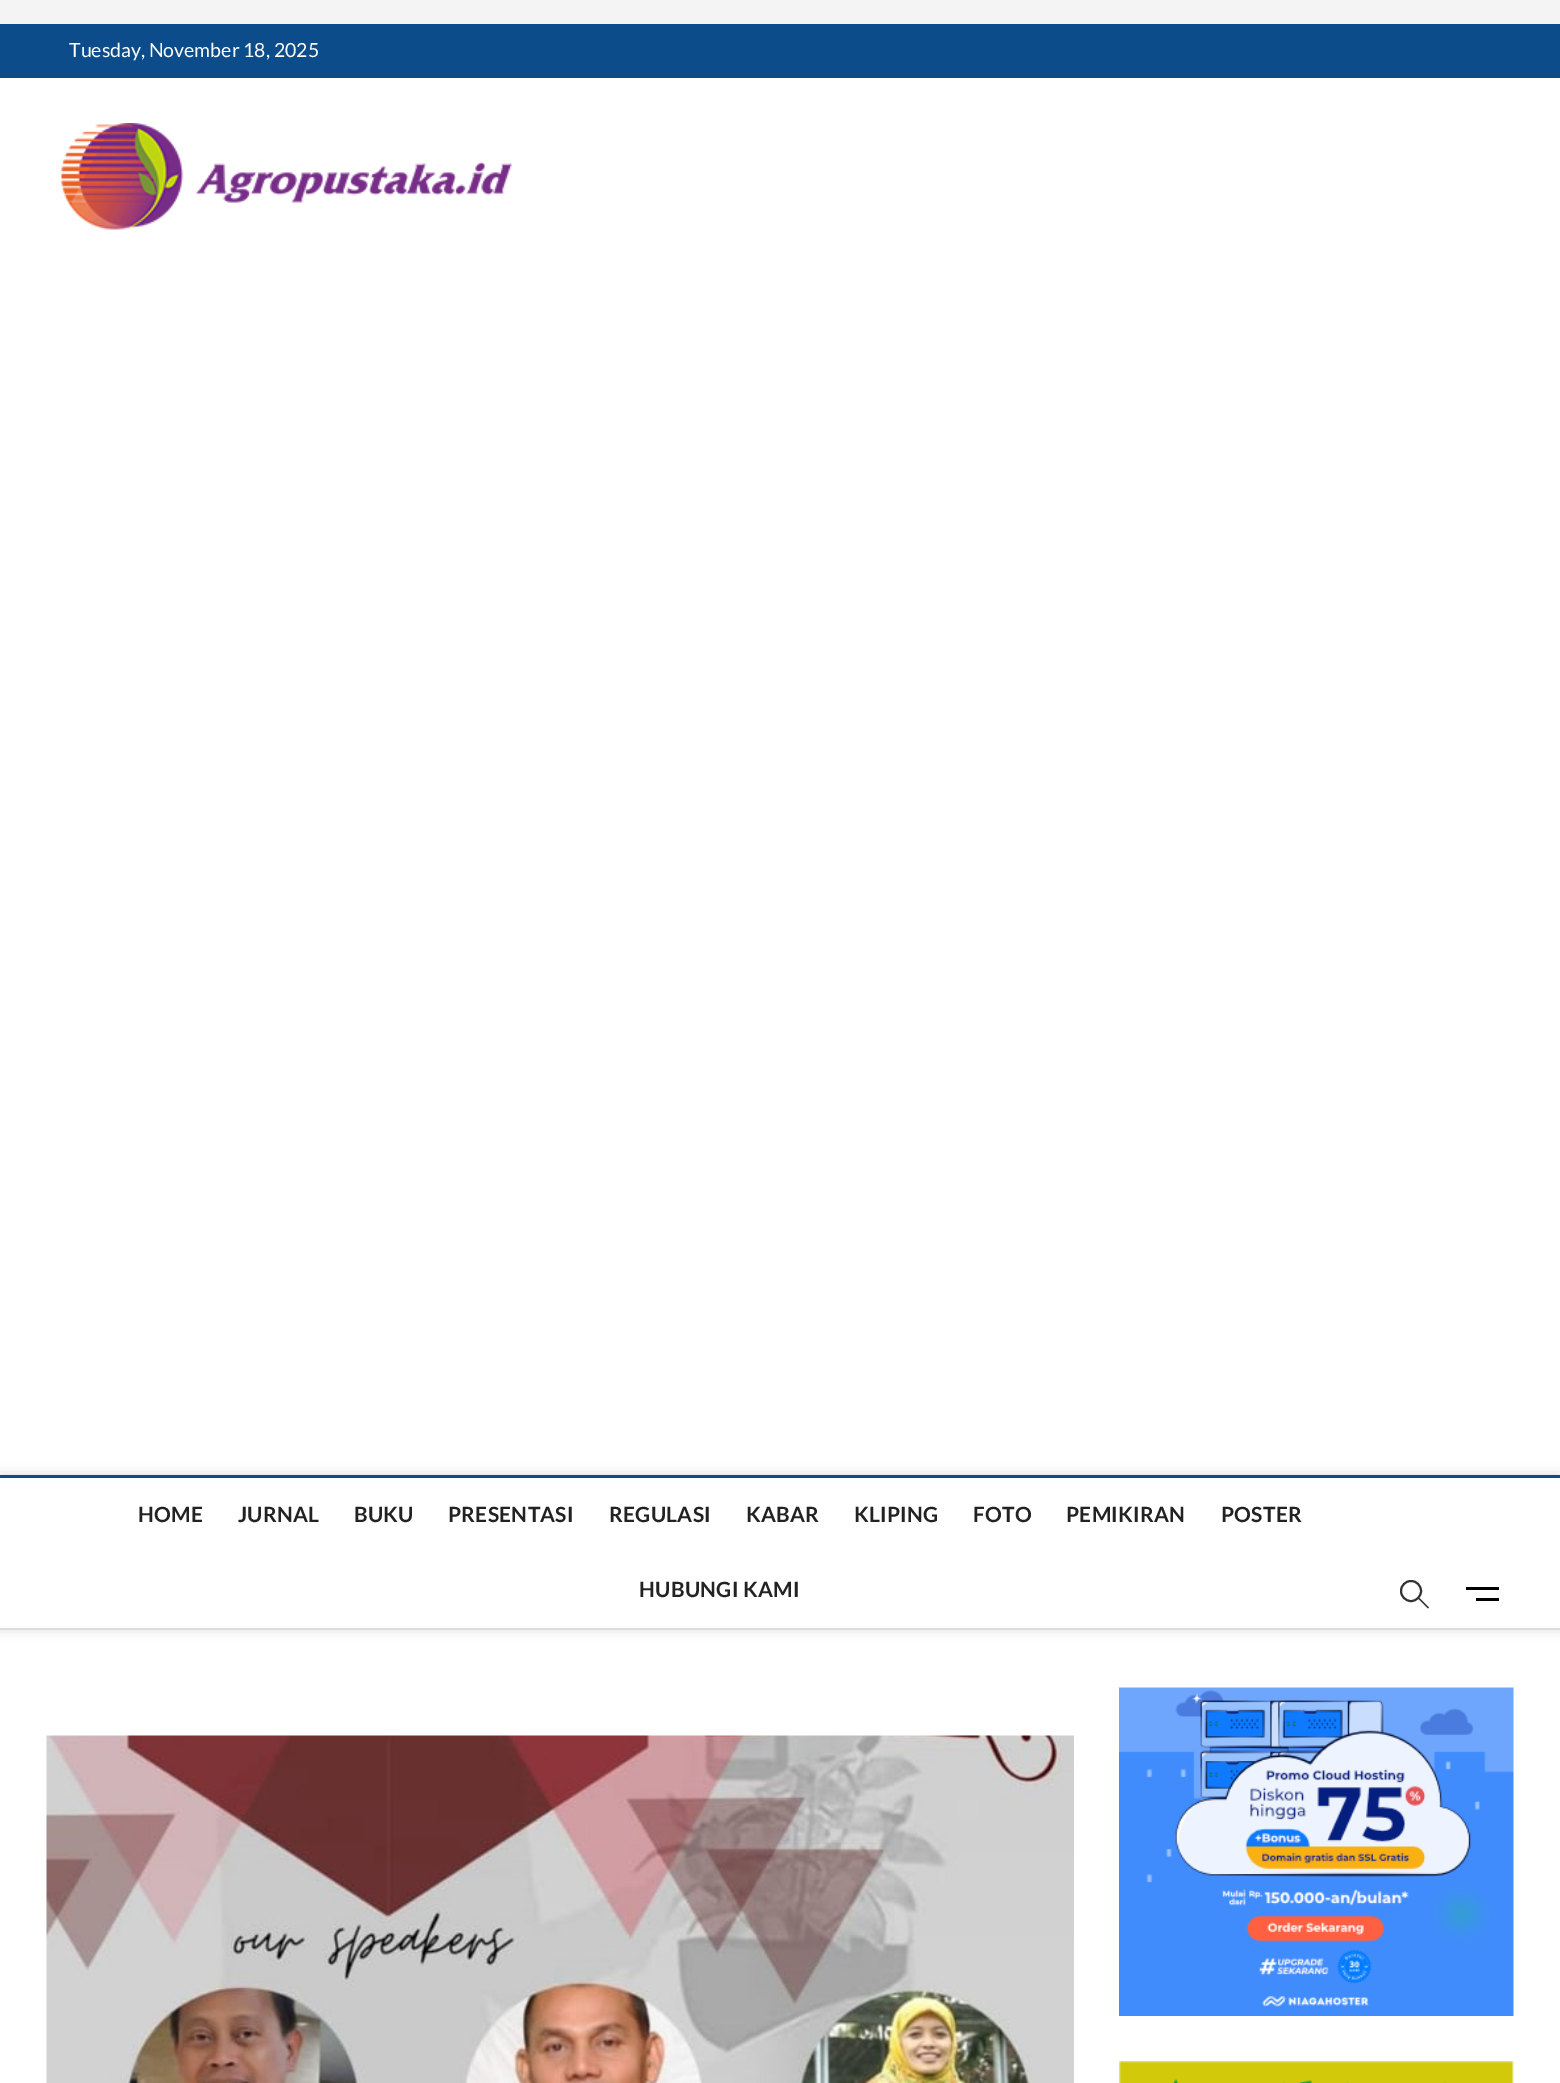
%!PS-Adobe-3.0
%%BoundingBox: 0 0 1560 2083
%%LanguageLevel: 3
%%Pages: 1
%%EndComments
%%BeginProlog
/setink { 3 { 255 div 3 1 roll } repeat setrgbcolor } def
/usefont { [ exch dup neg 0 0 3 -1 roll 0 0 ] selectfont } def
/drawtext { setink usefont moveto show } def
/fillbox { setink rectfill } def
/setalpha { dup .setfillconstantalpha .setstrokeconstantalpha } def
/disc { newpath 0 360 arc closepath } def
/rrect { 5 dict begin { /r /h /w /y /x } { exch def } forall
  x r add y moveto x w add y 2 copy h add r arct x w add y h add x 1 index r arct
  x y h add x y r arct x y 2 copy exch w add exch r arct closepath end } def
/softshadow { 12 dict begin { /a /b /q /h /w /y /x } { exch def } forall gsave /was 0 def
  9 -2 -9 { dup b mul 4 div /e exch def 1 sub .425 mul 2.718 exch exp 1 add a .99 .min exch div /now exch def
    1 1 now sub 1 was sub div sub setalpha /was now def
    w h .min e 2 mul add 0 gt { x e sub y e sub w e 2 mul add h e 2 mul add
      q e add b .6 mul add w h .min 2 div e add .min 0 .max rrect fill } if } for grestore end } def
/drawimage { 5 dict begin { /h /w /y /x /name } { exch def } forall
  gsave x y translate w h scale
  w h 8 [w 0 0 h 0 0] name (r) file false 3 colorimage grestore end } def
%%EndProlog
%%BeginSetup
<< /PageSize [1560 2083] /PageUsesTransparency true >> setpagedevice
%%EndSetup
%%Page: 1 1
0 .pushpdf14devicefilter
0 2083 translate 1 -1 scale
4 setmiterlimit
0 0 1560 2083 244 244 244 fillbox
0 78 1560 2005 255 255 255 fillbox
0 24 1560 54 12 76 138 fillbox
(Tuesday, November 18, 2025) 69 57 /Lato-Regular 19.5 255 255 255 drawtext
(assets/img1.rgb) 61 123 451 107 drawimage
gsave
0 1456 moveto 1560 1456 lineto 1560 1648 lineto 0 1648 lineto closepath 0 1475 moveto 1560 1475 lineto 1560 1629 lineto 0 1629 lineto closepath eoclip newpath
0 0 0 setink
0 1475 1560 154 0 6 0.15 softshadow
grestore
0 1475 1560 3 12 76 138 fillbox
0 1628 1560 2 221 221 221 fillbox
/Lato-Bold 21 usefont
34 34 34 setink
138 1522 moveto 0.25 0 (HOME) ashow
238 1522 moveto 0.25 0 (JURNAL) ashow
354 1522 moveto 0.25 0 (BUKU) ashow
448 1522 moveto 0.25 0 (PRESENTASI) ashow
609 1522 moveto 0.25 0 (REGULASI) ashow
746 1522 moveto 0.25 0 (KABAR) ashow
854 1522 moveto 0.25 0 (KLIPING) ashow
973 1522 moveto 0.25 0 (FOTO) ashow
1066 1522 moveto 0.25 0 (PEMIKIRAN) ashow
1221 1522 moveto 0.25 0 (POSTER) ashow
639 1597 moveto 0.25 0 (HUBUNGI KAMI) ashow
51 51 51 setink
2 setlinewidth
1411 1591 10 disc stroke
1417.5 1598 moveto 1418.5 1597 lineto 1429 1607.5 lineto 1428 1608.5 lineto closepath fill
1466 1587 33 3 0 0 0 fillbox
1476 1598 23 3 0 0 0 fillbox
(assets/img2.rgb) 46 1735 1028 348 drawimage
(assets/img3.rgb) 1119 1687 395 329 drawimage
(assets/img4.rgb) 1119 2061 395 22 drawimage
.poppdf14devicefilter showpage
%%EOF
